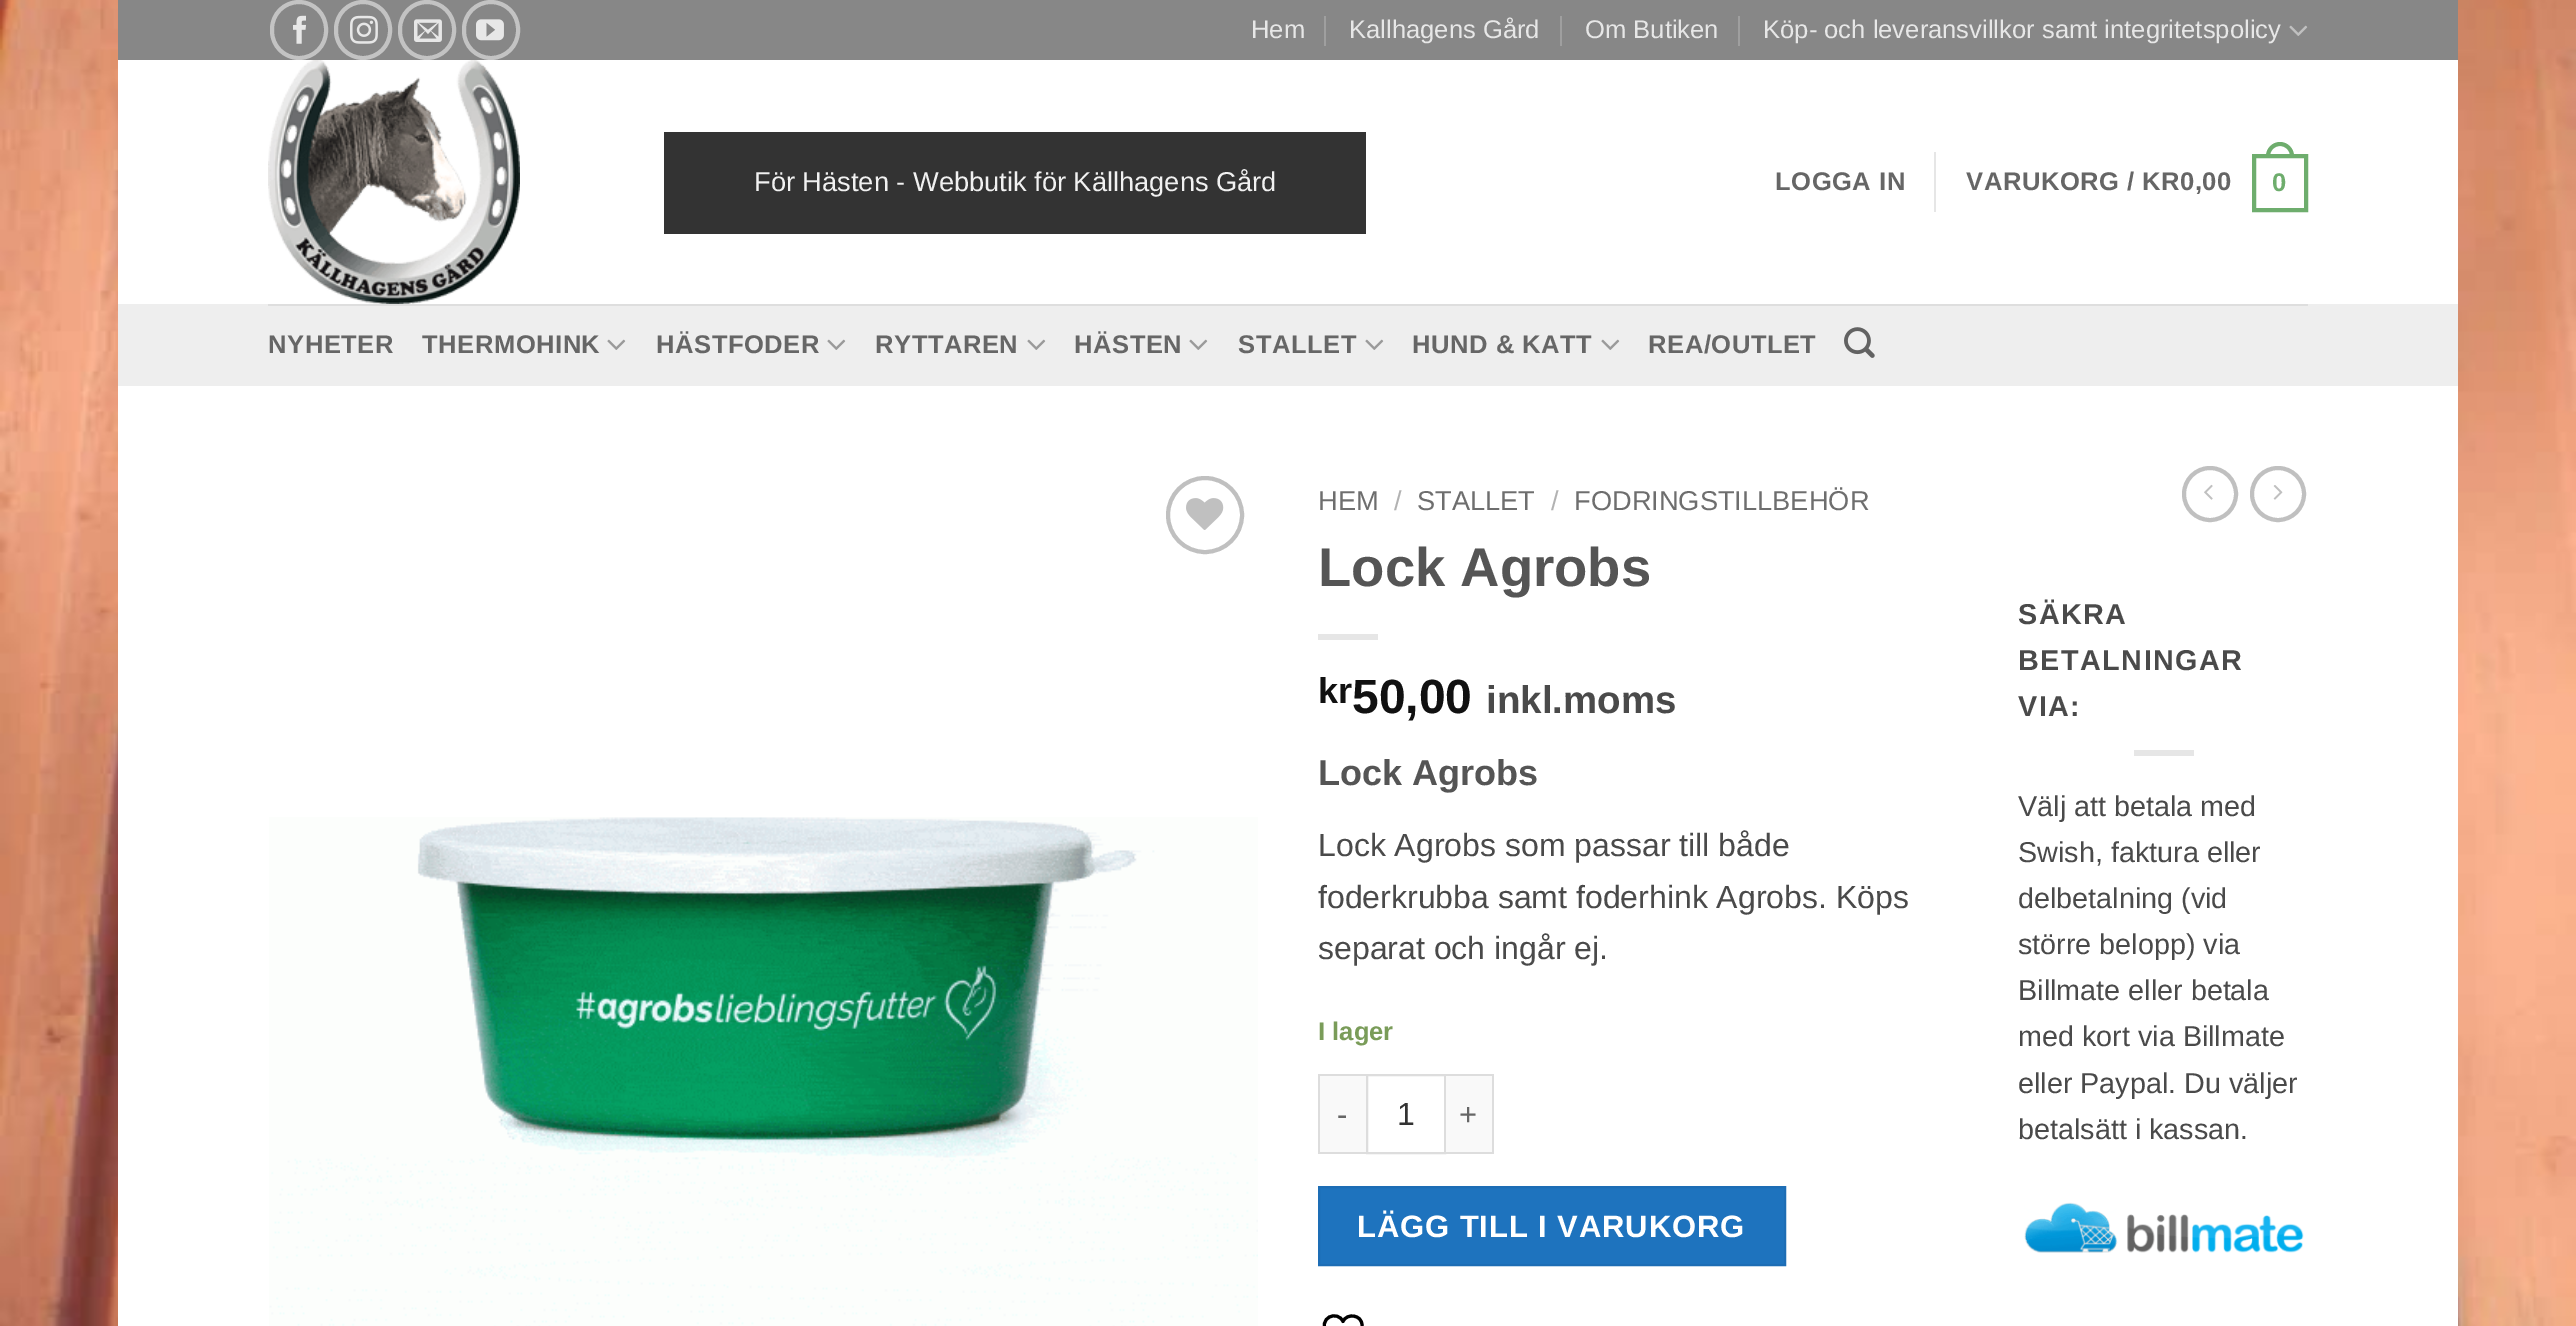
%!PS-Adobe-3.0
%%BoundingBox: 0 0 2576 1326
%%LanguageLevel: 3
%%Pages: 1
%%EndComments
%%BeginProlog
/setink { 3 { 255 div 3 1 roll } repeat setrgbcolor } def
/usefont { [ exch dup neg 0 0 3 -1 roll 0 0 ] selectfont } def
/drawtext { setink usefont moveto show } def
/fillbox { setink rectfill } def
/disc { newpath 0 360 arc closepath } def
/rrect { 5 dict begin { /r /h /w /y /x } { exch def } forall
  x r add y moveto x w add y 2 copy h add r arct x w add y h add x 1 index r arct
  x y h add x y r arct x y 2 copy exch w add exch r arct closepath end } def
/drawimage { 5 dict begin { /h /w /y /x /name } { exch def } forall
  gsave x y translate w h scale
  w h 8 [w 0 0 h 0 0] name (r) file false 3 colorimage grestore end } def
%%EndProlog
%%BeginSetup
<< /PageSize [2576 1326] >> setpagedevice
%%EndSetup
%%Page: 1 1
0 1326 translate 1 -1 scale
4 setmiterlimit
0 0 2576 1326 255 255 255 fillbox
(assets/img1.rgb) 0 0 2576 1326 drawimage
118 60 2340 1266 255 255 255 fillbox
118 0 2340 60 135 135 135 fillbox
195 195 195 setink
4 setlinewidth
272 2 54 56 27 rrect stroke
(assets/img2.rgb) 293 15 13 29 drawimage
336 2 54 56 27 rrect stroke
(assets/img3.rgb) 350 15 28 29 drawimage
400 2 54 56 27 rrect stroke
(assets/img4.rgb) 414 19 28 23 drawimage
464 2 54 56 27 rrect stroke
(assets/img5.rgb) 476 19 28 22 drawimage
(Hem) 1251 38 /LiberationSans-Regular 25.6 231 231 231 drawtext
1324 16 2 30 159 159 159 fillbox
(Kallhagens Gård) 1349 38 /LiberationSans-Regular 25.6 231 231 231 drawtext
1560 16 2 30 159 159 159 fillbox
(Om Butiken) 1585 38 /LiberationSans-Regular 25.6 231 231 231 drawtext
1738 16 2 30 159 159 159 fillbox
(Köp- och leveransvillkor samt integritetspolicy) 1763 38 /LiberationSans-Regular 25.6 231 231 231 drawtext
(assets/img6.rgb) 2289 25 19 11 drawimage
(assets/img7.rgb) 268 60 252 244 drawimage
664 132 702 102 51 51 51 fillbox
(För Hästen - Webbutik för Källhagens Gård) 754 191 /LiberationSans-Regular 27.25 241 241 241 drawtext
/LiberationSans-Bold 25.6 usefont
102 102 102 setink
1775 190 moveto 0.5 0 (LOGGA IN) ashow
1934 152 2 60 230 230 230 fillbox
102 102 102 setink
1966 190 moveto 0.5 0 (VARUKORG / KR0,00) ashow
110 173 109 setink
2254 156 52 54 rectstroke
2280 142 moveto 2287.5 142 2294 148.5 2294 156 curveto 2294 158 lineto 2266 158 lineto 2266 156 lineto 2266 148.5 2272.5 142 2280 142 curveto closepath 2280 146 moveto 2285.5 146 2290 150.5 2290 156 curveto 2290 158 lineto 2270 158 lineto 2270 156 lineto 2270 150.5 2274.5 146 2280 146 curveto closepath eofill
2272 191 moveto 0.5 0 (0) ashow
118 304 2340 82 238 238 238 fillbox
268 304 2040 2 222 222 222 fillbox
102 102 102 setink
268 353 moveto 0.5 0 (NYHETER) ashow
422 353 moveto 0.5 0 (THERMOHINK) ashow
(assets/img8.rgb) 607 339 19 11 drawimage
656 353 moveto 0.5 0 (HÄSTFODER) ashow
(assets/img8.rgb) 827 339 19 11 drawimage
875 353 moveto 0.5 0 (RYTTAREN) ashow
(assets/img8.rgb) 1027 339 19 11 drawimage
1074 353 moveto 0.5 0 (HÄSTEN) ashow
(assets/img8.rgb) 1189 339 19 11 drawimage
1238 353 moveto 0.5 0 (STALLET) ashow
(assets/img8.rgb) 1365 339 19 11 drawimage
1412 353 moveto 0.5 0 (HUND & KATT) ashow
(assets/img8.rgb) 1601 339 19 11 drawimage
1648 353 moveto 0.5 0 (REA/OUTLET) ashow
(assets/img9.rgb) 1844 327 31 31 drawimage
192 192 192 setink
1205 515 37 disc stroke
(assets/img10.rgb) 1186 498 38 32 drawimage
(assets/img11.rgb) 269 817 989 509 drawimage
(HEM) 1318 510 /LiberationSans-Regular 27.25 110 110 110 drawtext
(/) 1394 510 /LiberationSans-Regular 27.25 178 178 178 drawtext
(STALLET) 1417 510 /LiberationSans-Regular 27.25 110 110 110 drawtext
(/) 1551 510 /LiberationSans-Regular 27.25 178 178 178 drawtext
(FODRINGSTILLBEHÖR) 1574 510 /LiberationSans-Regular 27.25 110 110 110 drawtext
(Lock Agrobs) 1318 586 /LiberationSans-Bold 54.5 85 85 85 drawtext
1318 634 60 6 230 230 230 fillbox
(kr) 1318 703 /LiberationSans-Bold 36 17 17 17 drawtext
(50,00) 1352 713 /LiberationSans-Bold 48 17 17 17 drawtext
(inkl.moms) 1486 713 /LiberationSans-Bold 38.5 74 74 74 drawtext
(Lock Agrobs) 1318 785 /LiberationSans-Bold 36 85 85 85 drawtext
(Lock Agrobs som passar till både) 1318 856 /LiberationSans-Regular 32 74 74 74 drawtext
(foderkrubba samt foderhink Agrobs. Köps) 1318 908 /LiberationSans-Regular 32 74 74 74 drawtext
(separat och ingår ej.) 1318 959 /LiberationSans-Regular 32 74 74 74 drawtext
(I lager) 1318 1040 /LiberationSans-Bold 25.6 122 156 89 drawtext
1320 1076 46 76 249 249 249 fillbox
1318 1074 48 2 221 221 221 fillbox
1318 1152 48 2 221 221 221 fillbox
1318 1074 2 80 221 221 221 fillbox
/LiberationSans-Regular 31 usefont
102 102 102 setink
1337 1125 moveto 0.9 0 (-) ashow
221 221 221 setink
2 setlinewidth
1367 1075 78 78 rectstroke
(1) 1397 1125 /LiberationSans-Regular 32 51 51 51 drawtext
1446 1076 46 76 249 249 249 fillbox
1446 1074 48 2 221 221 221 fillbox
1492 1074 2 80 221 221 221 fillbox
1446 1152 48 2 221 221 221 fillbox
/LiberationSans-Regular 31 usefont
102 102 102 setink
1459 1125 moveto 0.9 0 (+) ashow
30 115 190 setink
1319 1187 moveto 1785 1187 lineto 1785 1265 lineto 1319 1265 lineto closepath gsave fill grestore
29 109 181 setink
stroke
/LiberationSans-Bold 31 usefont
255 255 255 setink
1357 1237 moveto 0.9 0 (LÄGG TILL I VARUKORG) ashow
0 0 0 setink
3.1 setlinewidth
1 setlinecap
1 setlinejoin
1362 1325 moveto 1362 1315 1347 1312.5 1343 1321.5 curveto 1338 1310 1316.5 1316.5 1327 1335.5 curveto 1330.5 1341.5 1337 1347 1343 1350 curveto 1343 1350 1362 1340 1362 1325 curveto closepath stroke
192 192 192 setink
4 setlinewidth
0 setlinecap
0 setlinejoin
2210 494 26 disc stroke
(assets/img12.rgb) 2204 484 9 16 drawimage
2278 494 26 disc stroke
(assets/img13.rgb) 2273 485 10 15 drawimage
/LiberationSans-Bold 28.75 usefont
74 74 74 setink
2018 624 moveto 1.5 0 (SÄKRA) ashow
2018 670 moveto 1.5 0 (BETALNINGAR) ashow
2018 716 moveto 1.5 0 (VIA:) ashow
2134 750 60 6 230 230 230 fillbox
(Välj att betala med) 2018 816 /LiberationSans-Regular 28.75 74 74 74 drawtext
(Swish, faktura eller) 2018 862 /LiberationSans-Regular 28.75 74 74 74 drawtext
(delbetalning \(vid) 2018 908 /LiberationSans-Regular 28.75 74 74 74 drawtext
(större belopp\) via) 2018 954 /LiberationSans-Regular 28.75 74 74 74 drawtext
(Billmate eller betala) 2018 1000 /LiberationSans-Regular 28.75 74 74 74 drawtext
(med kort via Billmate) 2018 1046 /LiberationSans-Regular 28.75 74 74 74 drawtext
(eller Paypal. Du väljer) 2018 1093 /LiberationSans-Regular 28.75 74 74 74 drawtext
(betalsätt i kassan.) 2018 1139 /LiberationSans-Regular 28.75 74 74 74 drawtext
(assets/img14.rgb) 2024 1202 280 51 drawimage
showpage
%%EOF
